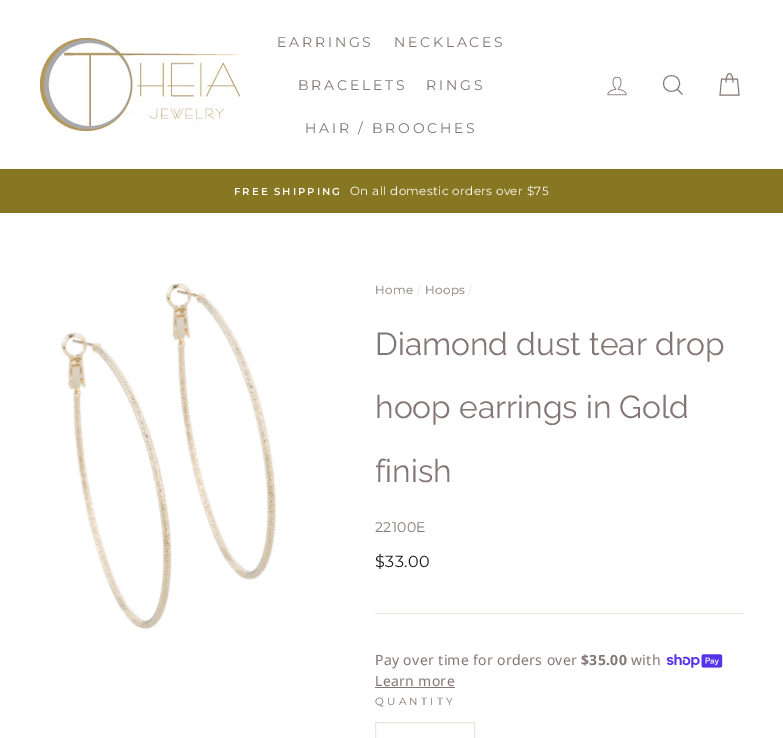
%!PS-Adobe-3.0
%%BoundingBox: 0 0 783 738
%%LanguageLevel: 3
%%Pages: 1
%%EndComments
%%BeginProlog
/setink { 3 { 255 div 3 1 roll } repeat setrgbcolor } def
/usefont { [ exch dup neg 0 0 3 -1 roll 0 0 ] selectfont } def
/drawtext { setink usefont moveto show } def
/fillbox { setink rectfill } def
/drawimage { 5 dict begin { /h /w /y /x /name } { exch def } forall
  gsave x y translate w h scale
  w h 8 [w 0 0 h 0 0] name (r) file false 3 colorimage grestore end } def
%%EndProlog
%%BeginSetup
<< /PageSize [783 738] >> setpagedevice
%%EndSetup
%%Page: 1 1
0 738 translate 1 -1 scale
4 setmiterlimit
0 0 783 738 255 255 255 fillbox
(assets/img1.rgb) 40 38 200 93 drawimage
/Montserrat-Regular 14 usefont
131 118 118 setink
277 47 moveto 2.75 0 (EARRINGS) ashow
394 47 moveto 2.75 0 (NECKLACES) ashow
298 90 moveto 2.75 0 (BRACELETS) ashow
426 90 moveto 2.75 0 (RINGS) ashow
305 133 moveto 2.75 0 (HAIR / BROOCHES) ashow
(assets/img2.rgb) 607 76 20 20 drawimage
0.9 setlinewidth
679.5 83.5 moveto 679.5 94 663.5 94 663.5 83.5 curveto 663.5 73 679.5 73 679.5 83.5 curveto closepath 682.5 94.5 moveto 677.5 89.5 lineto stroke
726 82.5 moveto 726 70.5 733 70.5 733 82.5 curveto 721.5 79 moveto 737.5 79 lineto 739 95 lineto 720 95 lineto closepath stroke
0 169 783 44 136 119 34 fillbox
/Montserrat-SemiBold 10.1 usefont
255 255 255 setink
234 195 moveto 2 0 (FREE SHIPPING) ashow
/Montserrat-Regular 11.9 usefont
350 195 moveto 0.35 0 (On all domestic orders over $75) ashow
(assets/img3.rgb) 60 283 217 347 drawimage
131 118 118 setink
375 294 moveto 0.35 0 (Home) ashow
232 232 225 setink
417 294 moveto 0.35 0 (/) ashow
131 118 118 setink
425 294 moveto 0.35 0 (Hoops) ashow
232 232 225 setink
468 294 moveto 0.35 0 (/) ashow
(Diamond dust tear drop) 375 355 /Raleway-Regular 31.75 131 118 118 drawtext
(hoop earrings in Gold) 375 418 /Raleway-Regular 31.75 131 118 118 drawtext
(finish) 375 482 /Raleway-Regular 31.75 131 118 118 drawtext
/Montserrat-Regular 14 usefont
375 532 moveto 0.35 0 (22100E) ashow
/Montserrat-Regular 16 usefont
28 29 29 setink
375 567 moveto 0.35 0 ($33.00) ashow
375 613 368 1 232 232 225 fillbox
/NotoSans-Regular 14 usefont
131 118 118 setink
375 665 moveto 0.35 0 (Pay over time for orders over) ashow
/NotoSans-Bold 14 usefont
581 665 moveto 0.35 0 ($35.00) ashow
/NotoSans-Regular 14 usefont
631 665 moveto 0.35 0 (with) ashow
(assets/img4.rgb) 666 654 57 14 drawimage
375 686 moveto 0.35 0 (Learn more) ashow
375 687 80 1 131 118 118 fillbox
/Montserrat-Regular 10.5 usefont
375 705 moveto 3.25 0 (QUANTITY) ashow
232 232 225 setink
1 setlinewidth
375.5 722.5 99 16 rectstroke
showpage
%%EOF
